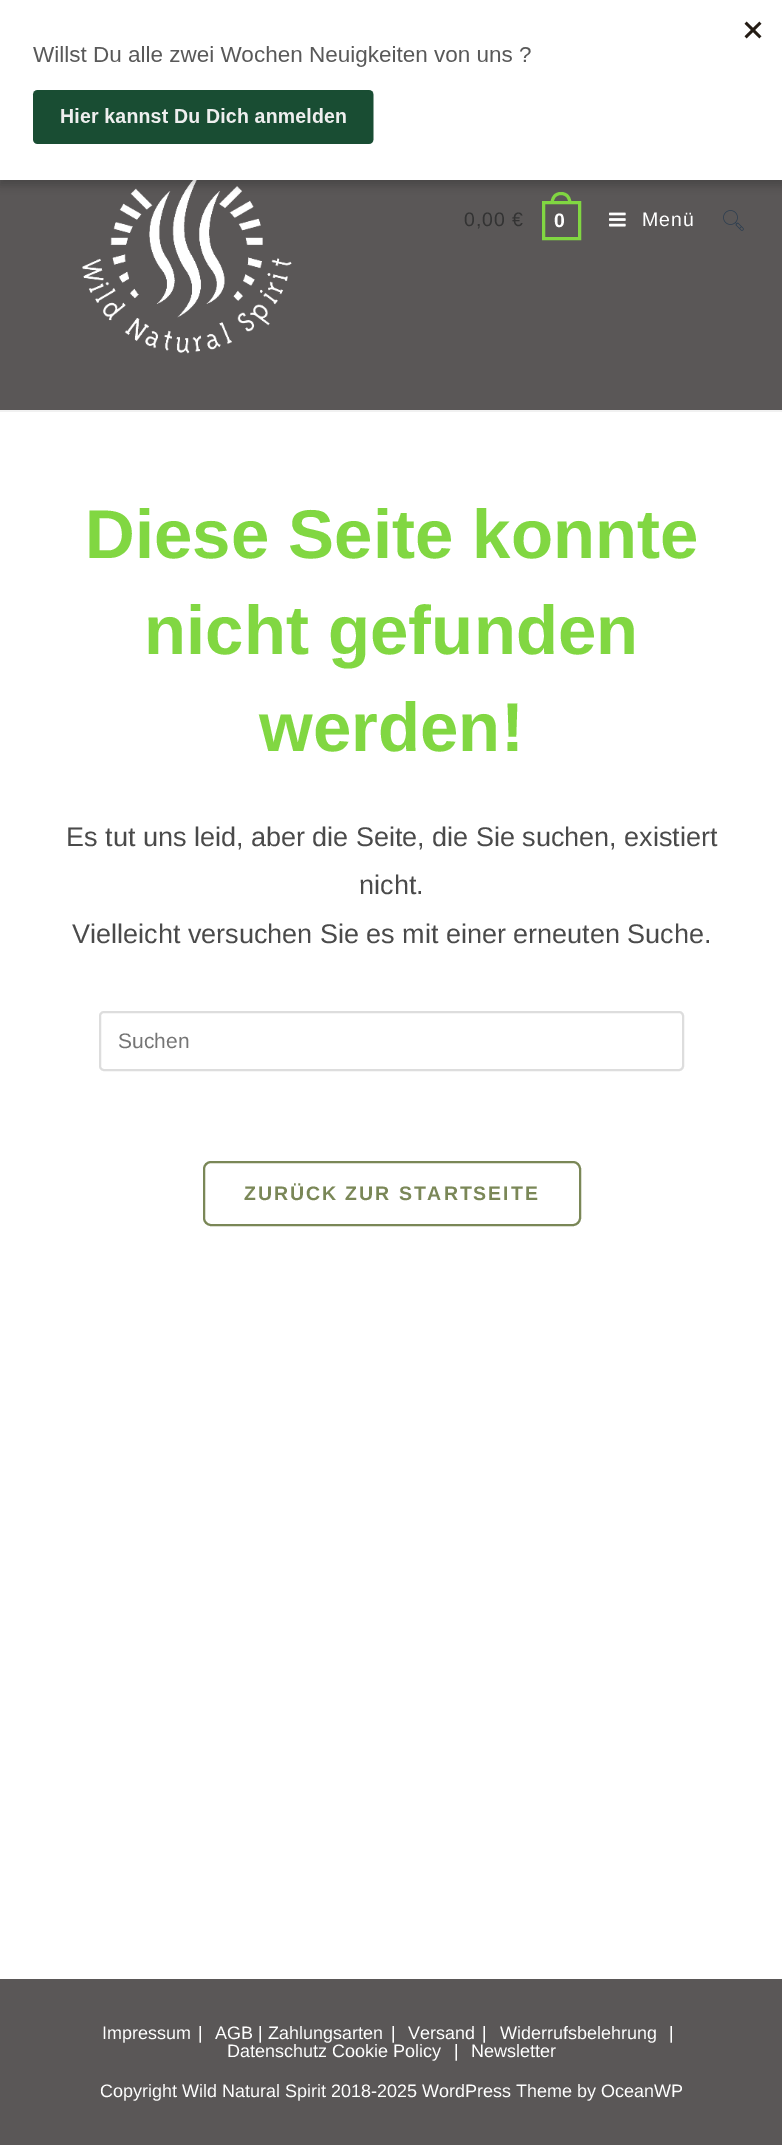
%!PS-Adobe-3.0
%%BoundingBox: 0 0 782 2145
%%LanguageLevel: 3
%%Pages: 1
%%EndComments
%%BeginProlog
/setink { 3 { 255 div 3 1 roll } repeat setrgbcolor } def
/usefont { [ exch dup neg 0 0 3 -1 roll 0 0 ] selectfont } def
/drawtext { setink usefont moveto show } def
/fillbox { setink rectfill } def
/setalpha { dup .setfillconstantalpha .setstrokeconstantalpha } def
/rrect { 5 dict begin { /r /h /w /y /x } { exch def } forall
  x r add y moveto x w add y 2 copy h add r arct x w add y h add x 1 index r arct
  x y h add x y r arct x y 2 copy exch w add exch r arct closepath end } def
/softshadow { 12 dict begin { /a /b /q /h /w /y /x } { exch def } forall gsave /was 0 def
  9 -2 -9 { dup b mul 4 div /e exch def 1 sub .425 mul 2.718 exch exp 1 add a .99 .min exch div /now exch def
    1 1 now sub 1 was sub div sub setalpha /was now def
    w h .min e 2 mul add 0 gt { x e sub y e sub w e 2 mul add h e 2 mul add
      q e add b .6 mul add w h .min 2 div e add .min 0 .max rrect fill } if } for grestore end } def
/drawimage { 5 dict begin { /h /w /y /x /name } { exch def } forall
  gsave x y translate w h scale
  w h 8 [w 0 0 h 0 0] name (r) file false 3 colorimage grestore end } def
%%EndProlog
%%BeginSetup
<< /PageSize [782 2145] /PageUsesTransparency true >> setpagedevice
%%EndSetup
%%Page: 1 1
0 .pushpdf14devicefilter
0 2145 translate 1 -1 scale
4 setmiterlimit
0 0 782 2145 255 255 255 fillbox
0 180 782 230 90 87 87 fillbox
(assets/img2.rgb) 82 180 210 174 drawimage
129 215 66 setink
3 setlinewidth
543.5 202.5 36 36 rectstroke
561 192 moveto 568 192 571.5 197.5 571.5 204 curveto 550.5 204 lineto 550.5 197.5 554 192 561 192 curveto closepath 561 195 moveto 566.5 195 568.5 199.5 568.5 204 curveto 553.5 204 lineto 553.5 199.5 555.5 195 561 195 curveto closepath eofill
0 0 0 setink
0 5 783 180 0 4.5 0.2 softshadow
0 0 782 180 255 255 255 fillbox
(assets/img1.rgb) 32 21 730 123 drawimage
0 410 782 2 241 241 241 fillbox
/LiberationSans-Regular 19.5 usefont
51 51 51 setink
464 226 moveto 1 0 (0,00 €) ashow
/LiberationSans-Bold 19.5 usefont
255 255 255 setink
554 227 moveto 1 0 (0) ashow
(assets/img3.rgb) 609 212 17 15 drawimage
/LiberationSans-Regular 19.5 usefont
642 226 moveto 1 0 (Menü) ashow
(assets/img4.rgb) 723 210 21 21 drawimage
(Diese Seite konnte) 85 558 /LiberationSans-Bold 69 129 215 66 drawtext
(nicht gefunden) 144 654 /LiberationSans-Bold 69 129 215 66 drawtext
(werden!) 259 751 /LiberationSans-Bold 69 129 215 66 drawtext
(Es tut uns leid, aber die Seite, die Sie suchen, existiert) 66 846 /LiberationSans-Regular 27 74 74 74 drawtext
(nicht.) 359 894 /LiberationSans-Regular 27 74 74 74 drawtext
(Vielleicht versuchen Sie es mit einer erneuten Suche.) 72 943 /LiberationSans-Regular 27 74 74 74 drawtext
221 221 221 setink
2 setlinewidth
100 1012 583 58 4 rrect stroke
(Suchen) 118 1048 /LiberationSans-Regular 21 117 117 117 drawtext
122 135 87 setink
204 1162 376 63 7 rrect stroke
/LiberationSans-Bold 19.5 usefont
244 1200 moveto 1.95 0 (ZURÜCK ZUR STARTSEITE) ashow
0 1979 782 166 90 87 87 fillbox
(Impressum) 102 2039 /LiberationSans-Regular 18 255 255 255 drawtext
(|) 198 2039 /LiberationSans-Regular 18 255 255 255 drawtext
(AGB | Zahlungsarten) 215 2039 /LiberationSans-Regular 18 255 255 255 drawtext
(|) 391 2039 /LiberationSans-Regular 18 255 255 255 drawtext
(Versand) 408 2039 /LiberationSans-Regular 18 255 255 255 drawtext
(|) 482 2039 /LiberationSans-Regular 18 255 255 255 drawtext
(Widerrufsbelehrung) 500 2039 /LiberationSans-Regular 18 255 255 255 drawtext
(|) 669 2039 /LiberationSans-Regular 18 255 255 255 drawtext
(Datenschutz Cookie Policy) 227 2057 /LiberationSans-Regular 18 255 255 255 drawtext
(|) 454 2057 /LiberationSans-Regular 18 255 255 255 drawtext
(Newsletter) 471 2057 /LiberationSans-Regular 18 255 255 255 drawtext
(Copyright Wild Natural Spirit 2018-2025 WordPress Theme by OceanWP) 100 2097 /LiberationSans-Regular 18 255 255 255 drawtext
.poppdf14devicefilter showpage
%%EOF
